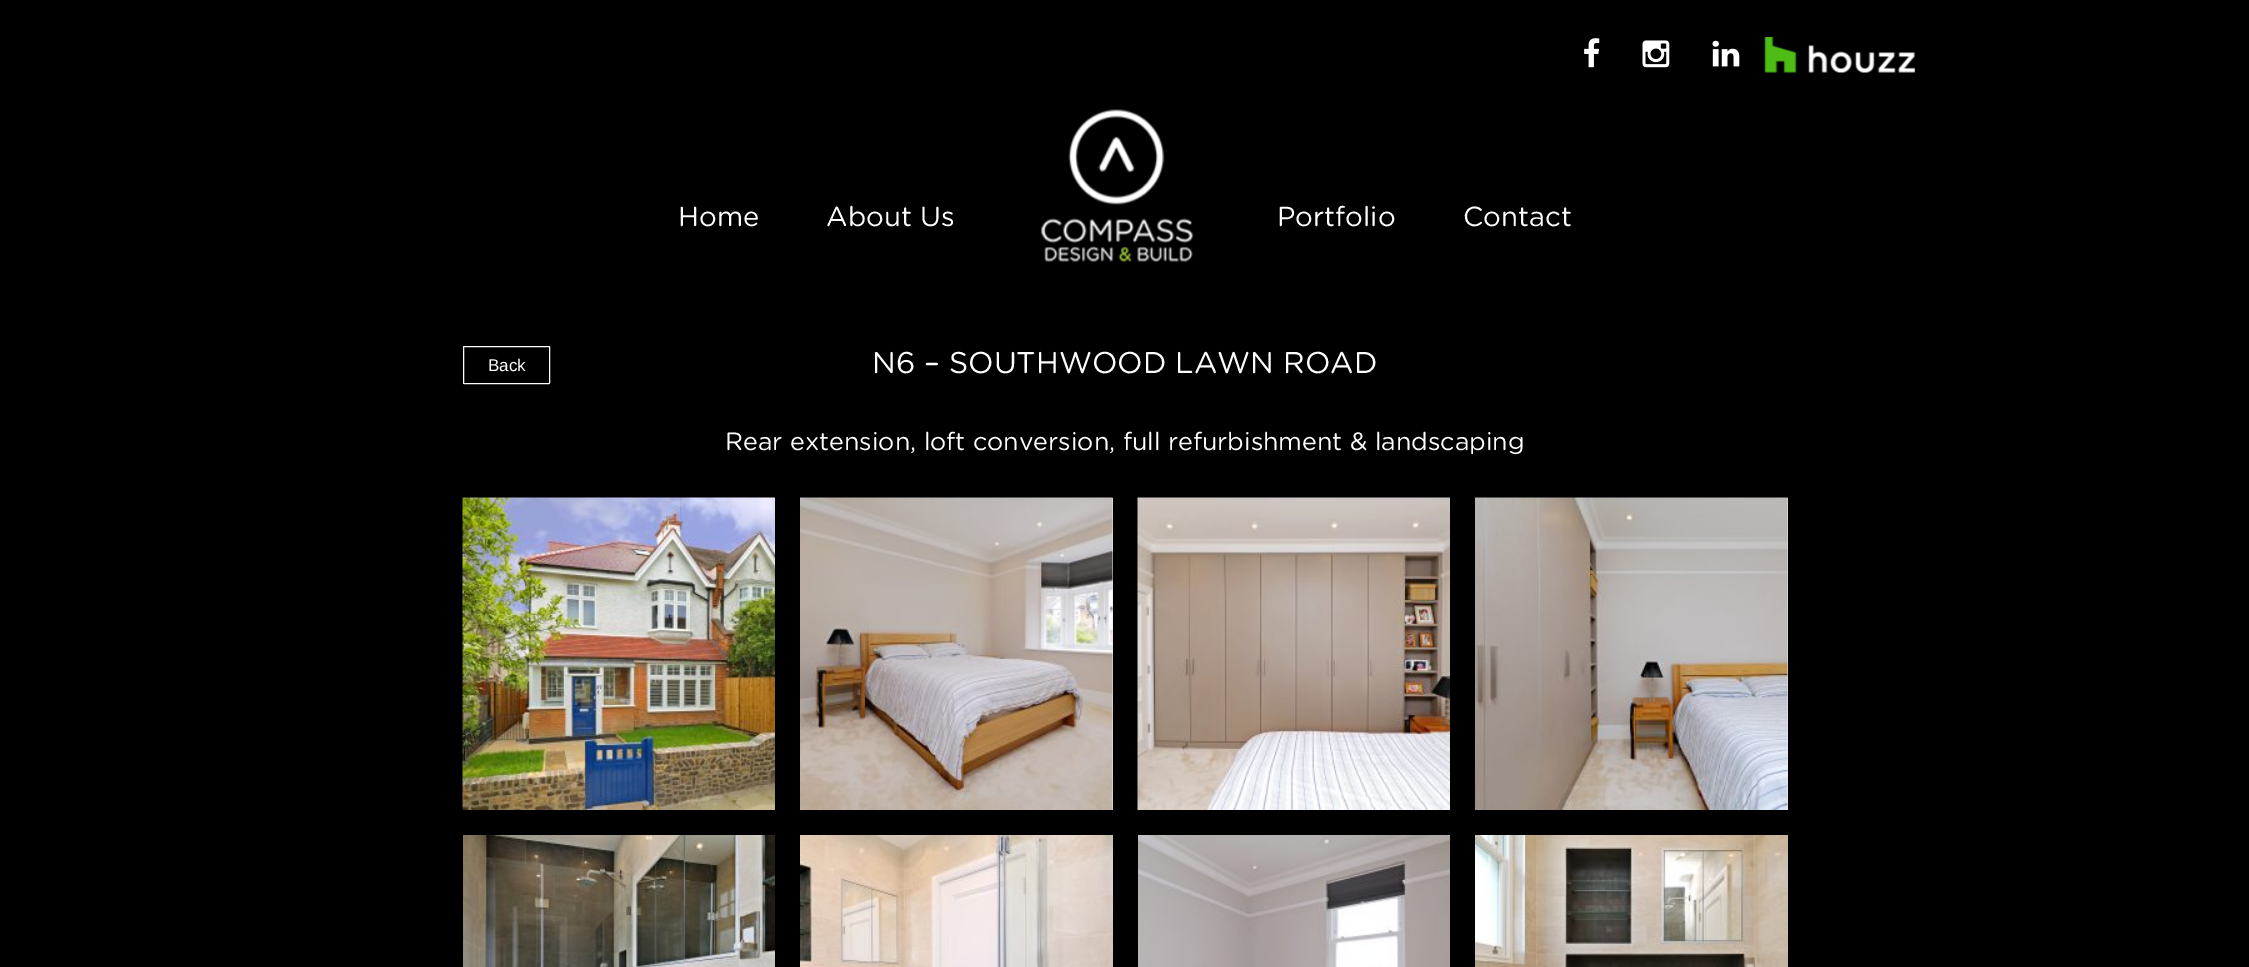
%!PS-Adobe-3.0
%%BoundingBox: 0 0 2249 967
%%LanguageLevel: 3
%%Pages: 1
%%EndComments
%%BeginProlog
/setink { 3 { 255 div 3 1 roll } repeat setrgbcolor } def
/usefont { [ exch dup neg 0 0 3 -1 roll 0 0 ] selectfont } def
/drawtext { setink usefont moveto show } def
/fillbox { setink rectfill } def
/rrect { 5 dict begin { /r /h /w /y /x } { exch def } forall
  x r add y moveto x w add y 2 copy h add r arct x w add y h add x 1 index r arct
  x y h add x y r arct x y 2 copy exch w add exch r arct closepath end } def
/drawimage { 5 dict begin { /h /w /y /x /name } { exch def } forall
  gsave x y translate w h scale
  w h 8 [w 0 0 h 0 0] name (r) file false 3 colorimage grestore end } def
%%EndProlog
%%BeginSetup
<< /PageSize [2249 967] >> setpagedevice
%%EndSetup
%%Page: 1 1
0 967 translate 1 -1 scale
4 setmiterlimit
0 0 2249 967 0 0 0 fillbox
(assets/img1.rgb) 1584 38 16 30 drawimage
(assets/img2.rgb) 1642 40 28 28 drawimage
(assets/img3.rgb) 1712 40 28 27 drawimage
(assets/img4.rgb) 1764 37 151 36 drawimage
(Home) 678 226 /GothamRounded-Regular 27.5 255 255 255 drawtext
(About Us) 826 226 /GothamRounded-Regular 27.5 255 255 255 drawtext
(assets/img5.rgb) 1040 109 154 153 drawimage
(Portfolio) 1277 226 /GothamRounded-Regular 27.5 255 255 255 drawtext
(Contact) 1463 226 /GothamRounded-Regular 27.5 255 255 255 drawtext
463.5 346.5 86 37 0.5 rrect stroke
(Back) 488 371 /LiberationSans-Regular 17 255 255 255 drawtext
(N6 – SOUTHWOOD LAWN ROAD) 872 373 /GothamRounded-Regular 30 255 255 255 drawtext
(Rear extension, loft conversion, full refurbishment & landscaping) 725 450 /GothamRounded-Regular 25 255 255 255 drawtext
(assets/img6.rgb) 462 497 313 313 drawimage
1112 498 1 312 234 234 234 fillbox
(assets/img7.rgb) 800 497 313 313 drawimage
(assets/img8.rgb) 1137 497 313 313 drawimage
1787 498 1 312 234 234 234 fillbox
(assets/img9.rgb) 1475 497 313 313 drawimage
(assets/img10.rgb) 463 835 312 132 drawimage
(assets/img11.rgb) 800 835 313 132 drawimage
(assets/img12.rgb) 1138 835 312 132 drawimage
(assets/img13.rgb) 1475 835 313 132 drawimage
showpage
%%EOF
